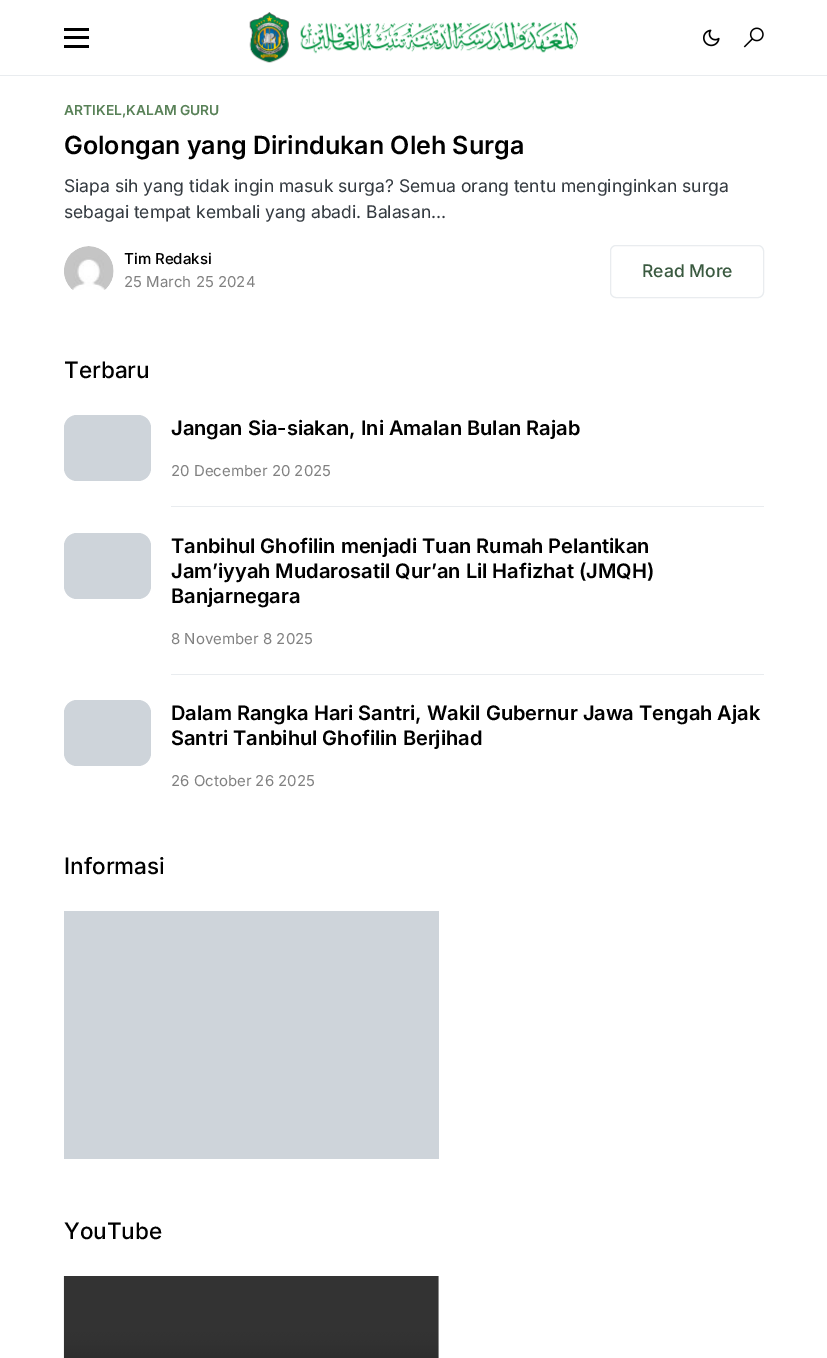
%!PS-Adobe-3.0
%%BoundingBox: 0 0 827 1358
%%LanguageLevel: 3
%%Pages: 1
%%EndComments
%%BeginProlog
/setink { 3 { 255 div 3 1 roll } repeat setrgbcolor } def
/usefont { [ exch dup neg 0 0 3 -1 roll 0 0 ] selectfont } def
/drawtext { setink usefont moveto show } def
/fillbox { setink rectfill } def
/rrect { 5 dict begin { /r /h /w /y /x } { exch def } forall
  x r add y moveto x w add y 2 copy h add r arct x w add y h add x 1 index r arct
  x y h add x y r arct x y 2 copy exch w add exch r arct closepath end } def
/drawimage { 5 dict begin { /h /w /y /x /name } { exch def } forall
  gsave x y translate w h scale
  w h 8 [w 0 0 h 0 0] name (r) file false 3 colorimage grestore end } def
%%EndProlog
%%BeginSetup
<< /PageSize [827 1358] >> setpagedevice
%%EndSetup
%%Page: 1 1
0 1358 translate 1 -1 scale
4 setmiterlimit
0 0 827 1358 255 255 255 fillbox
0 75 827 1 233 236 239 fillbox
64 28 25 3 0 0 0 fillbox
64 36 25 3 0 0 0 fillbox
64 45 25 3 0 0 0 fillbox
(assets/img1.rgb) 249 12 329 51 drawimage
(assets/img2.rgb) 703 29 17 18 drawimage
(assets/img3.rgb) 743 27 21 21 drawimage
(ARTIKEL) 64 115 /Inter-SemiBold 13.75 88 129 87 drawtext
(,KALAM GURU) 122 115 /Inter-SemiBold 13.75 88 129 87 drawtext
(Golongan yang Dirindukan Oleh Surga) 64 154 /Inter-SemiBold 25 0 0 0 drawtext
(Siapa sih yang tidak ingin masuk surga? Semua orang tentu menginginkan surga) 64 192 /Inter-Regular 17.5 52 58 64 drawtext
(sebagai tempat kembali yang abadi. Balasan…) 64 218 /Inter-Regular 17.5 52 58 64 drawtext
(assets/img4.rgb) 64 246 50 44 drawimage
(Tim Redaksi) 124 264 /Inter-Medium 15 0 0 0 drawtext
(25 March 25 2024) 124 287 /Inter-Regular 15 129 129 129 drawtext
233 236 239 setink
610.5 245.5 153 52 5.5 rrect stroke
(Read More) 642 277 /Inter-Medium 17.5 58 90 64 drawtext
(Terbaru) 64 378 /Inter-Medium 22.5 0 0 0 drawtext
206 212 218 setink
64 415 87 66 13 rrect fill
(Jangan Sia-siakan, Ini Amalan Bulan Rajab) 171 435 /Inter-SemiBold 20 0 0 0 drawtext
(20 December 20 2025) 171 476 /Inter-Regular 15 129 129 129 drawtext
171 506 593 1 233 236 239 fillbox
206 212 218 setink
64 533 87 66 13 rrect fill
(Tanbihul Ghofilin menjadi Tuan Rumah Pelantikan) 171 553 /Inter-SemiBold 20 0 0 0 drawtext
(Jam’iyyah Mudarosatil Qur’an Lil Hafizhat \(JMQH\)) 171 578 /Inter-SemiBold 20 0 0 0 drawtext
(Banjarnegara) 171 603 /Inter-SemiBold 20 0 0 0 drawtext
(8 November 8 2025) 171 644 /Inter-Regular 15 129 129 129 drawtext
171 674 593 1 233 236 239 fillbox
206 212 218 setink
64 700 87 66 13 rrect fill
(Dalam Rangka Hari Santri, Wakil Gubernur Jawa Tengah Ajak) 171 720 /Inter-SemiBold 20 0 0 0 drawtext
(Santri Tanbihul Ghofilin Berjihad) 171 745 /Inter-SemiBold 20 0 0 0 drawtext
(26 October 26 2025) 171 786 /Inter-Regular 15 129 129 129 drawtext
(Informasi) 64 874 /Inter-Medium 22.5 0 0 0 drawtext
64 911 375 248 206 212 218 fillbox
(YouTube) 64 1239 /Inter-Medium 22.5 0 0 0 drawtext
(assets/img5.rgb) 63 1276 376 82 drawimage
showpage
%%EOF
